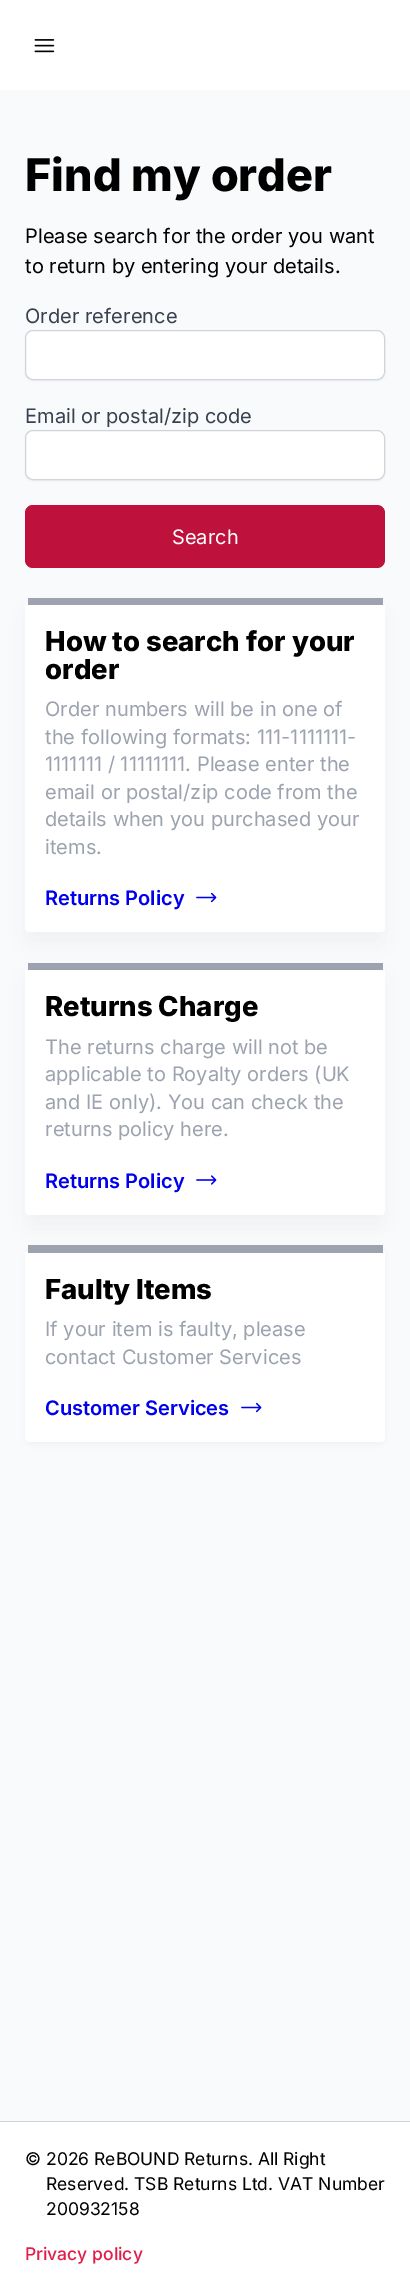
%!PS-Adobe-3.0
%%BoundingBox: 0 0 410 2296
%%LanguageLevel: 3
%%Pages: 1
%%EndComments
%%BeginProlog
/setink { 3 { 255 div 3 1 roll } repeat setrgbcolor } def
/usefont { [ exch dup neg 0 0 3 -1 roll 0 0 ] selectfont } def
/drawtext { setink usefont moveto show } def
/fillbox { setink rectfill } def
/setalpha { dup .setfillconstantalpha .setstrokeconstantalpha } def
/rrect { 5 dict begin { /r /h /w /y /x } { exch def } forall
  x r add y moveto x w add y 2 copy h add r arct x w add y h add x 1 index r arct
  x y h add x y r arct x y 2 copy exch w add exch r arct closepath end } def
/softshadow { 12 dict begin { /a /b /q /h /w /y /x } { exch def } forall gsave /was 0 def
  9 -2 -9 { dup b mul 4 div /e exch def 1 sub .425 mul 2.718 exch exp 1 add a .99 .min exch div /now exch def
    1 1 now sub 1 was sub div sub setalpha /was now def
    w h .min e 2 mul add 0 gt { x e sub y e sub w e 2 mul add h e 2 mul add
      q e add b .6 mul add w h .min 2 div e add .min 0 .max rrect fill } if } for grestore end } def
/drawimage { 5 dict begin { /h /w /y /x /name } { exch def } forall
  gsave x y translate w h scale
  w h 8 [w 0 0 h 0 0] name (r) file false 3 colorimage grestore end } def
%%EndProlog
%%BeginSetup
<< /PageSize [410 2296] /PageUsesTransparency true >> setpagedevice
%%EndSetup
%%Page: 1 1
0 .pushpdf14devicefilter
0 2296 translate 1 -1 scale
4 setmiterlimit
0 0 410 2296 255 255 255 fillbox
(assets/img1.rgb) 34 39 21 14 drawimage
0 90 410 2031 249 250 251 fillbox
(Find my order) 25 191 /Inter-ExtraBold 45 0 0 0 drawtext
(Please search for the order you want) 25 243 /Inter-Regular 20 0 0 0 drawtext
(to return by entering your details.) 25 273 /Inter-Regular 20 0 0 0 drawtext
(Order reference) 25 323 /Inter-Regular 20 55 65 81 drawtext
0 0 0 setink
25 331 360 50 8 1 0.05 softshadow
255 255 255 setink
25.5 330.5 359 49 7.5 rrect gsave fill grestore
209 213 219 setink
stroke
(Email or postal/zip code) 25 423 /Inter-Regular 20 55 65 81 drawtext
0 0 0 setink
25 431 360 50 8 1 0.05 softshadow
255 255 255 setink
25.5 430.5 359 49 7.5 rrect gsave fill grestore
209 213 219 setink
stroke
190 18 60 setink
25 505 360 63 8 rrect fill
(Search) 172 544 /Inter-Regular 20 255 255 255 drawtext
0 0 0 setink
25 610 360 335 5 12.5 0.04 softshadow
255 255 255 setink
30 605 moveto 385 605 lineto 385 928 lineto 385 930 383 932 380 932 curveto 30 932 lineto 27 932 25 930 25 928 curveto 25 605 lineto closepath fill
28 598 355 7 156 163 175 fillbox
(How to search for your) 45 651 /Inter-ExtraBold 27.5 0 0 0 drawtext
(order) 45 679 /Inter-ExtraBold 27.5 0 0 0 drawtext
(Order numbers will be in one of) 45 716 /Inter-Regular 20 156 163 175 drawtext
(the following formats: 111-1111111-) 45 744 /Inter-Regular 20 156 163 175 drawtext
(1111111 / 11111111. Please enter the) 45 771 /Inter-Regular 20 156 163 175 drawtext
(email or postal/zip code from the) 45 799 /Inter-Regular 20 156 163 175 drawtext
(details when you purchased your) 45 826 /Inter-Regular 20 156 163 175 drawtext
(items.) 45 854 /Inter-Regular 20 156 163 175 drawtext
(Returns Policy) 45 905 /Inter-SemiBold 20 0 0 238 drawtext
(assets/img2.rgb) 196 892 21 11 drawimage
0 0 0 setink
25 975 360 253 5 12.5 0.04 softshadow
255 255 255 setink
30 970 moveto 385 970 lineto 385 1210 lineto 385 1213 383 1215 380 1215 curveto 30 1215 lineto 27 1215 25 1213 25 1210 curveto 25 970 lineto closepath fill
28 963 355 7 156 163 175 fillbox
(Returns Charge) 45 1016 /Inter-ExtraBold 27.5 0 0 0 drawtext
(The returns charge will not be) 45 1054 /Inter-Regular 20 156 163 175 drawtext
(applicable to Royalty orders \(UK) 45 1081 /Inter-Regular 20 156 163 175 drawtext
(and IE only\). You can check the) 45 1109 /Inter-Regular 20 156 163 175 drawtext
(returns policy here.) 45 1136 /Inter-Regular 20 156 163 175 drawtext
(Returns Policy) 45 1188 /Inter-SemiBold 20 0 0 238 drawtext
(assets/img3.rgb) 196 1175 21 10 drawimage
0 0 0 setink
25 1248 360 197 5 4 0.04 softshadow
255 255 255 setink
30 1252 moveto 385 1252 lineto 385 1438 lineto 385 1440 383 1442 380 1442 curveto 30 1442 lineto 27 1442 25 1440 25 1438 curveto 25 1252 lineto closepath fill
28 1245 355 8 156 163 175 fillbox
(Faulty Items) 45 1299 /Inter-ExtraBold 27.5 0 0 0 drawtext
(If your item is faulty, please) 45 1336 /Inter-Regular 20 156 163 175 drawtext
(contact Customer Services) 45 1364 /Inter-Regular 20 156 163 175 drawtext
(Customer Services) 45 1415 /Inter-SemiBold 20 0 0 238 drawtext
(assets/img2.rgb) 241 1402 21 11 drawimage
0 2121 410 1 209 213 219 fillbox
(© 2026 ReBOUND Returns. All Right) 25 2165 /Inter-Regular 17.5 0 0 0 drawtext
(Reserved. TSB Returns Ltd. VAT Number) 46 2190 /Inter-Regular 17.5 0 0 0 drawtext
(200932158) 46 2215 /Inter-Regular 17.5 0 0 0 drawtext
(Privacy policy) 25 2260 /Inter-Medium 17.5 225 29 72 drawtext
.poppdf14devicefilter showpage
%%EOF
